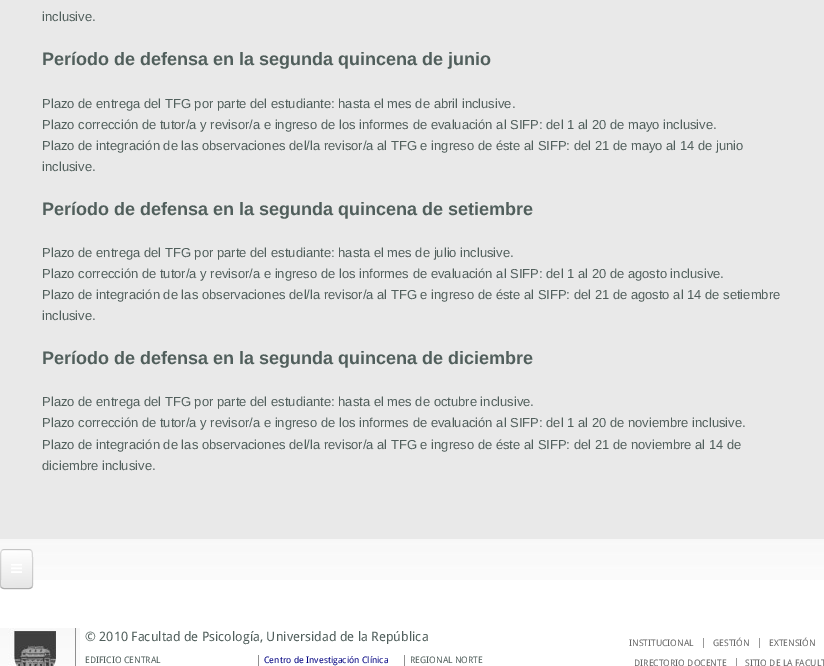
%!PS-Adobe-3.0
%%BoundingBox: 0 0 824 666
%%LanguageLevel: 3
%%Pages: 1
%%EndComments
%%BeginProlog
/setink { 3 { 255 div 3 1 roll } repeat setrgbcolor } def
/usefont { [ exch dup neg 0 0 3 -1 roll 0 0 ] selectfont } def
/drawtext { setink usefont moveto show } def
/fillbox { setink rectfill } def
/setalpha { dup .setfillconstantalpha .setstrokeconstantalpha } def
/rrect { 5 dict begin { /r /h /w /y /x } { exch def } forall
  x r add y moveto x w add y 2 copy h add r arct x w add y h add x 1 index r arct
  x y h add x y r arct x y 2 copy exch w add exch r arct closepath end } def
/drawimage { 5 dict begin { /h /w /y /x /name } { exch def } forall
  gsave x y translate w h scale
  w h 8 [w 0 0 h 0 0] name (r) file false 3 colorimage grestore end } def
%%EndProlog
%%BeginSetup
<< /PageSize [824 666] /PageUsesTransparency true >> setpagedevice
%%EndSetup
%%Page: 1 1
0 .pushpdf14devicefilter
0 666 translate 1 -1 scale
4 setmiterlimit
0 0 824 666 233 233 233 fillbox
(inclusive.) 42 21 /LiberationSans-Regular 13 81 95 92 drawtext
(Período de defensa en la segunda quincena de junio) 42 65 /LiberationSans-Bold 18 81 95 92 drawtext
(Plazo de entrega del TFG por parte del estudiante: hasta el mes de abril inclusive.) 42 108 /LiberationSans-Regular 13 81 95 92 drawtext
(Plazo corrección de tutor/a y revisor/a e ingreso de los informes de evaluación al SIFP: del 1 al 20 de mayo inclusive.) 42 129 /LiberationSans-Regular 13 81 95 92 drawtext
(Plazo de integración de las observaciones del/la revisor/a al TFG e ingreso de éste al SIFP: del 21 de mayo al 14 de junio) 42 150 /LiberationSans-Regular 13 81 95 92 drawtext
(inclusive.) 42 171 /LiberationSans-Regular 13 81 95 92 drawtext
(Período de defensa en la segunda quincena de setiembre) 42 215 /LiberationSans-Bold 18 81 95 92 drawtext
(Plazo de entrega del TFG por parte del estudiante: hasta el mes de julio inclusive.) 42 257 /LiberationSans-Regular 13 81 95 92 drawtext
(Plazo corrección de tutor/a y revisor/a e ingreso de los informes de evaluación al SIFP: del 1 al 20 de agosto inclusive.) 42 278 /LiberationSans-Regular 13 81 95 92 drawtext
(Plazo de integración de las observaciones del/la revisor/a al TFG e ingreso de éste al SIFP: del 21 de agosto al 14 de setiembre) 42 299 /LiberationSans-Regular 13 81 95 92 drawtext
(inclusive.) 42 320 /LiberationSans-Regular 13 81 95 92 drawtext
(Período de defensa en la segunda quincena de diciembre) 42 364 /LiberationSans-Bold 18 81 95 92 drawtext
(Plazo de entrega del TFG por parte del estudiante: hasta el mes de octubre inclusive.) 42 406 /LiberationSans-Regular 13 81 95 92 drawtext
(Plazo corrección de tutor/a y revisor/a e ingreso de los informes de evaluación al SIFP: del 1 al 20 de noviembre inclusive.) 42 427 /LiberationSans-Regular 13 81 95 92 drawtext
(Plazo de integración de las observaciones del/la revisor/a al TFG e ingreso de éste al SIFP: del 21 de noviembre al 14 de) 42 449 /LiberationSans-Regular 13 81 95 92 drawtext
(diciembre inclusive.) 42 470 /LiberationSans-Regular 13 81 95 92 drawtext
0 580 824 86 255 255 255 fillbox
(assets/img1.rgb) 0 539 824 41 drawimage
232 232 232 setink
0 549 33 40 4 rrect fill
gsave
0 549 33 40 4 rrect clip newpath
gsave 0 550 moveto 33 550 lineto 33 588 lineto 0 588 lineto closepath clip newpath
<< /ShadingType 2 /ColorSpace /DeviceRGB /Coords [16 550 17 588] /Extend [true true] /Function << /FunctionType 2 /Domain [0 1] /C0 [1 1 1] /C1 [0.902 0.902 0.902] /N 1 >> >> shfill grestore
grestore
0.25 setalpha
0 0 0 setink
31.5 587.5 moveto 31 588 30 588.5 29 588.5 curveto 4 588.5 lineto 3 588.5 2 588 1.5 587.5 curveto stroke
0.15 setalpha
1.5 587.5 moveto -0.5 585.5 0.5 581.5 0.5 579.5 curveto 0.5 558.5 lineto 0.5 550 0 549.5 8 549.5 curveto 25 549.5 lineto 33 549.5 32.5 550 32.5 558.5 curveto 32.5 579.5 lineto 32.5 581.5 33.5 585.5 31.5 587.5 curveto stroke
1 setalpha
(assets/img2.rgb) 11 564 11 9 drawimage
(assets/img3.rgb) 0 628 80 38 drawimage
(© 2010 Facultad de Psicología, Universidad de la República) 85 641 /DroidSans-Regular 13 81 95 92 drawtext
(INSTITUCIONAL) 629 646 /DroidSans-Regular 9 102 102 102 drawtext
703 638 1 10 153 153 153 fillbox
(GESTIÓN) 713 646 /DroidSans-Regular 9 102 102 102 drawtext
759 638 1 10 153 153 153 fillbox
(EXTENSIÓN) 769 646 /DroidSans-Regular 9 102 102 102 drawtext
(DIRECTORIO DOCENTE) 634 666 /DroidSans-Regular 9 102 102 102 drawtext
736 658 1 8 153 153 153 fillbox
(SITIO DE LA FACULT) 745 666 /DroidSans-Regular 9 102 102 102 drawtext
(EDIFICIO CENTRAL) 85 663 /DroidSans-Regular 9 81 95 92 drawtext
258 655 1 11 144 144 144 fillbox
(Centro de Investigación Clínica) 264 663 /DroidSans-Regular 9 0 0 128 drawtext
404 655 1 11 144 144 144 fillbox
(REGIONAL NORTE) 410 663 /DroidSans-Regular 9 81 95 92 drawtext
.poppdf14devicefilter showpage
%%EOF
